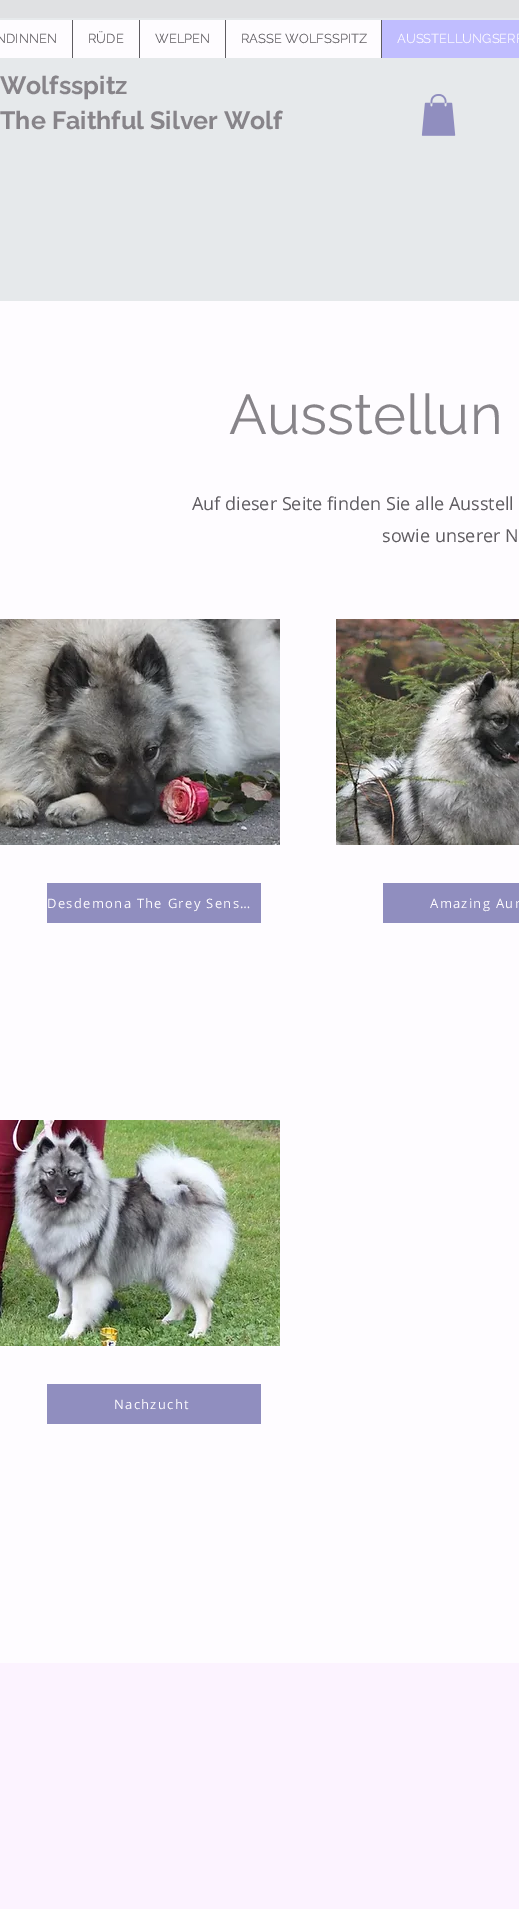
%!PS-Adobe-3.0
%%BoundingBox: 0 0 519 1909
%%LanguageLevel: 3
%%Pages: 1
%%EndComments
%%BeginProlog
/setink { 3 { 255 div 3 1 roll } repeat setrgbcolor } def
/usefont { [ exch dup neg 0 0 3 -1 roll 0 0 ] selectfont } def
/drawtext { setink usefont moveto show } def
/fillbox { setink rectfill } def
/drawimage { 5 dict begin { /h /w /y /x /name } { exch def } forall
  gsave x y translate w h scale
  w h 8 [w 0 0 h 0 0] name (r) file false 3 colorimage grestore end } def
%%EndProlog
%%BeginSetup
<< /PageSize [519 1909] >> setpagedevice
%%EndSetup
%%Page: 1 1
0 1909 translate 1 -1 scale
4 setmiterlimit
0 0 519 1909 254 252 255 fillbox
0 18 519 283 230 233 235 fillbox
0 20 381 38 254 252 255 fillbox
(NDINNEN) -4 43 /Raleway-Regular 13 95 92 97 drawtext
72 20 1 38 95 92 97 fillbox
(RÜDE) 88 43 /Raleway-Regular 13 95 92 97 drawtext
139 20 1 38 95 92 97 fillbox
(WELPEN) 155 43 /Raleway-Regular 13 95 92 97 drawtext
225 20 1 38 95 92 97 fillbox
(RASSE WOLFSSPITZ) 241 43 /Raleway-Regular 13 95 92 97 drawtext
382 20 137 38 192 189 255 fillbox
381 20 1 38 95 92 97 fillbox
(AUSSTELLUNGSERF) 397 43 /Raleway-Regular 13 254 252 255 drawtext
0 0 519 18 224 225 227 fillbox
(Wolfsspitz) 0 94 /Raleway-Bold 25 135 132 137 drawtext
(The Faithful Silver Wolf) 0 129 /Raleway-Bold 25 135 132 137 drawtext
(assets/img1.rgb) 421 94 35 42 drawimage
(Ausstellun) 229 434 /Raleway-Regular 56 135 132 137 drawtext
(Auf dieser Seite finden Sie alle Ausstell) 192 510 /OpenSans-Regular 18 95 92 97 drawtext
(sowie unserer N) 382 542 /OpenSans-Regular 18 95 92 97 drawtext
(assets/img2.rgb) 0 619 280 226 drawimage
47 883 214 40 144 142 191 fillbox
/OpenSans-Regular 13 usefont
254 252 255 setink
47 908 moveto 1.3 0 (Desdemona The Grey Sens…) ashow
(assets/img3.rgb) 0 1120 280 226 drawimage
47 1384 214 40 144 142 191 fillbox
254 252 255 setink
114 1409 moveto 1.3 0 (Nachzucht) ashow
(assets/img4.rgb) 336 619 183 226 drawimage
383 883 136 40 144 142 191 fillbox
254 252 255 setink
430 908 moveto 1.3 0 (Amazing Aur) ashow
0 1663 519 246 252 243 255 fillbox
showpage
%%EOF
